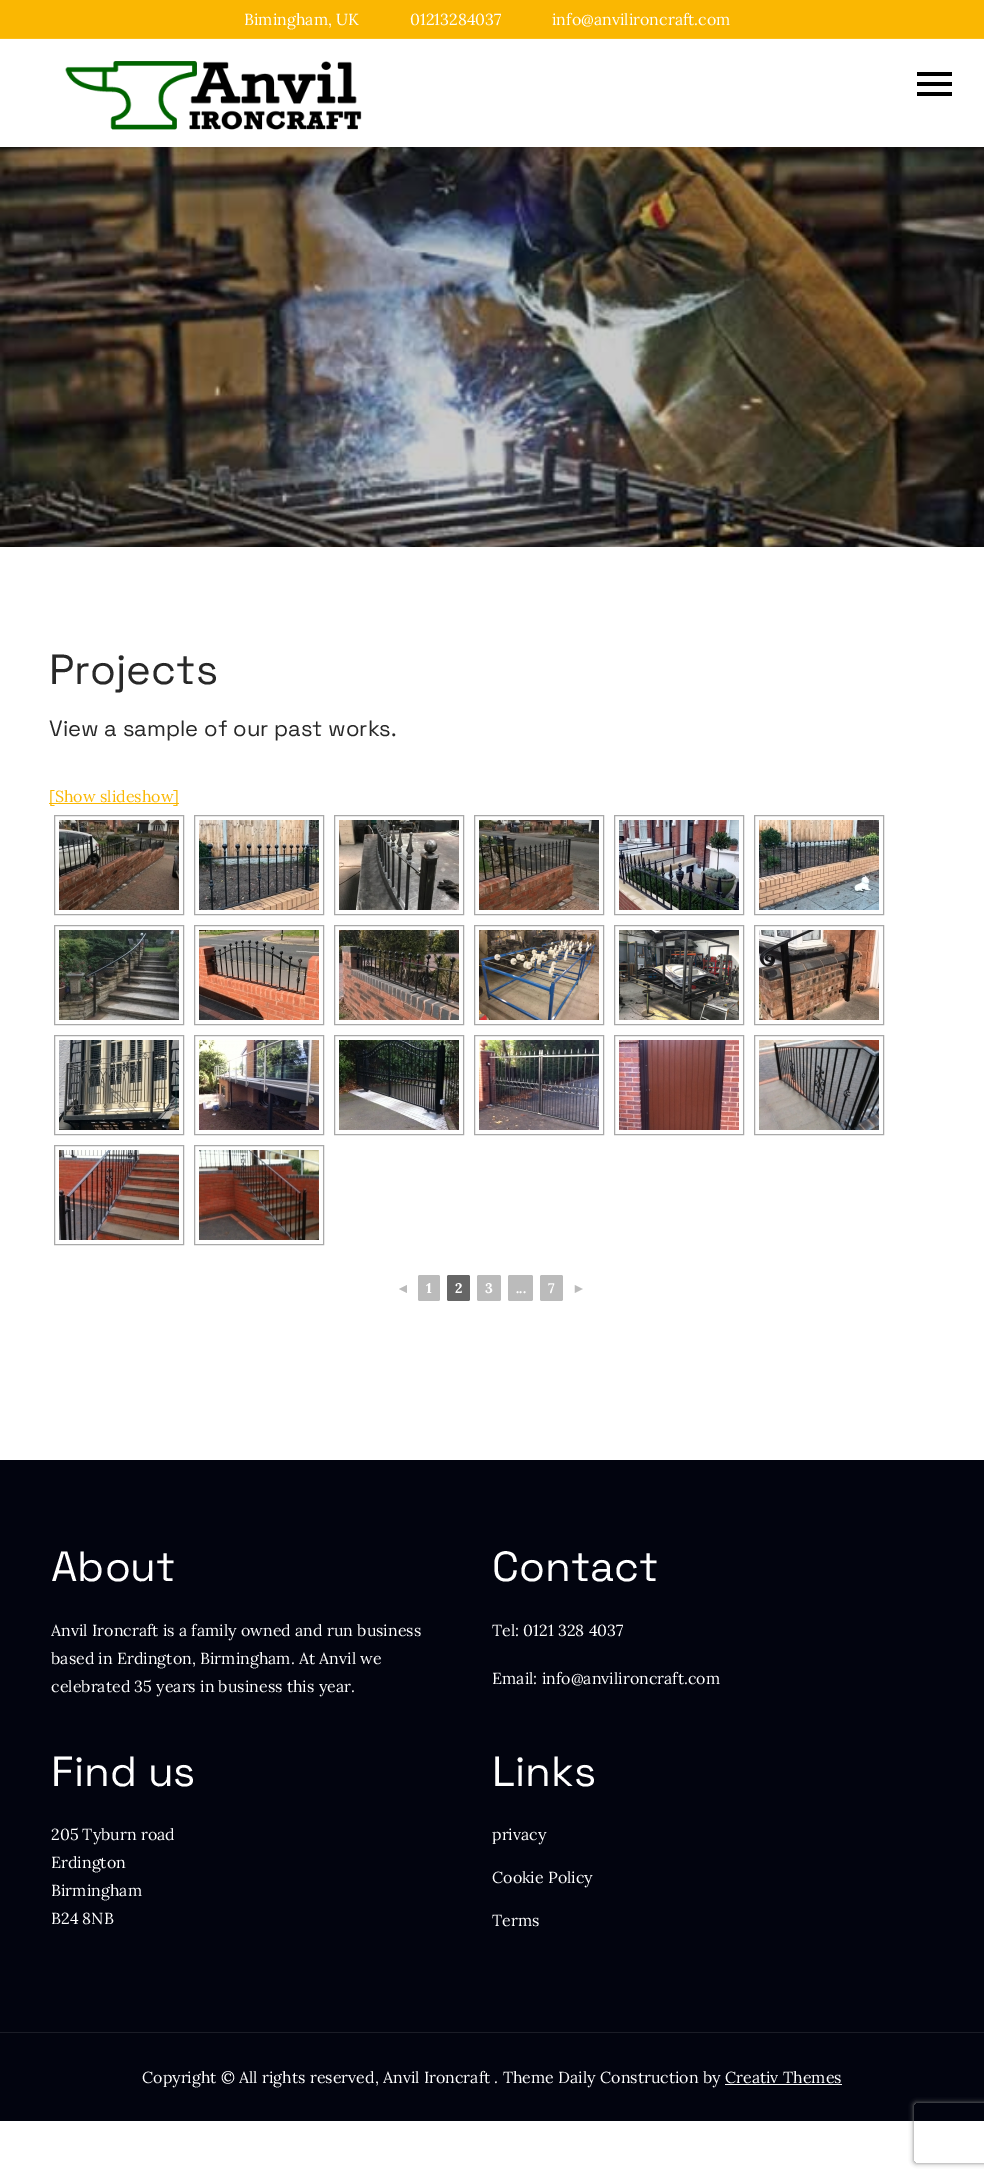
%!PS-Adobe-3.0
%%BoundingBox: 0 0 984 2177
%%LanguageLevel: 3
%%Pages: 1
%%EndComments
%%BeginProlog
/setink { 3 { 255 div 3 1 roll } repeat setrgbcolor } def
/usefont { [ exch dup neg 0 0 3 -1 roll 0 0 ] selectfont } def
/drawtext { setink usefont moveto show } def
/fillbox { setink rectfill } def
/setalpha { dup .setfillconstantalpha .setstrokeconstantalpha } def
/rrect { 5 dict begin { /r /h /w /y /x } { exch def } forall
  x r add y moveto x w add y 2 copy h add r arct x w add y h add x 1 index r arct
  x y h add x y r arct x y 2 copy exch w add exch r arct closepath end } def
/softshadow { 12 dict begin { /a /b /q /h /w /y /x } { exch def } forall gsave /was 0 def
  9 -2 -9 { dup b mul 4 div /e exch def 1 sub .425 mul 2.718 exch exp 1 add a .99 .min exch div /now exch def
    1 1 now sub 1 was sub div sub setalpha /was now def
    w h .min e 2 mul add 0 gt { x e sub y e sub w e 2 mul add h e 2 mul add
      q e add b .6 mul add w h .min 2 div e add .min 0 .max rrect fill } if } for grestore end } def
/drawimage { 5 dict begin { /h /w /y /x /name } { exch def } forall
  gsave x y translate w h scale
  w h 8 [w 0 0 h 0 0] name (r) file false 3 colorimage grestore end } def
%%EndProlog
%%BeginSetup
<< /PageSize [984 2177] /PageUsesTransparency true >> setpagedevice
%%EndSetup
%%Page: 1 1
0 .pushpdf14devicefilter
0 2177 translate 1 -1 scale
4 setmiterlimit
0 0 984 2177 255 255 255 fillbox
0 0 984 38 250 183 2 fillbox
0 38 984 1 251 190 27 fillbox
(Bimingham, UK) 244 25 /Lora-Regular 16 255 255 255 drawtext
(01213284037) 410 25 /Lora-Regular 16 255 255 255 drawtext
(info@anvilironcraft.com) 552 25 /Lora-Regular 16 255 255 255 drawtext
(assets/img2.rgb) 0 147 984 400 drawimage
gsave
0 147 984 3 rectclip
0 0 0 setink
0 41 984 108 0 1 0.1 softshadow
grestore
(assets/img1.rgb) 65 61 297 69 drawimage
917 82 35 4 0 0 0 fillbox
917 72 35 4 0 0 0 fillbox
917 92 35 4 0 0 0 fillbox
(Projects) 49 684 /SpaceGrotesk-Regular 42 40 40 40 drawtext
(View a sample of our past works.) 49 736 /SpaceGrotesk-Regular 22 40 40 40 drawtext
49 803 130 1 250 183 2 fillbox
([Show slideshow]) 49 802 /Lora-Regular 16 250 183 2 drawtext
169 169 169 setink
54.5 815.5 129 99 rectstroke
(assets/img3.rgb) 59 820 120 90 drawimage
194.5 815.5 129 99 rectstroke
(assets/img4.rgb) 199 820 120 90 drawimage
334.5 815.5 129 99 rectstroke
(assets/img5.rgb) 339 820 120 90 drawimage
474.5 815.5 129 99 rectstroke
(assets/img6.rgb) 479 820 120 90 drawimage
614.5 815.5 129 99 rectstroke
(assets/img7.rgb) 619 820 120 90 drawimage
754.5 815.5 129 99 rectstroke
(assets/img8.rgb) 759 820 120 90 drawimage
54.5 925.5 129 99 rectstroke
(assets/img9.rgb) 59 930 120 90 drawimage
194.5 925.5 129 99 rectstroke
(assets/img10.rgb) 199 930 120 90 drawimage
334.5 925.5 129 99 rectstroke
(assets/img11.rgb) 339 930 120 90 drawimage
474.5 925.5 129 99 rectstroke
(assets/img12.rgb) 479 930 120 90 drawimage
614.5 925.5 129 99 rectstroke
(assets/img13.rgb) 619 930 120 90 drawimage
754.5 925.5 129 99 rectstroke
(assets/img14.rgb) 759 930 120 90 drawimage
54.5 1035.5 129 99 rectstroke
(assets/img15.rgb) 59 1040 120 90 drawimage
194.5 1035.5 129 99 rectstroke
(assets/img16.rgb) 199 1040 120 90 drawimage
334.5 1035.5 129 99 rectstroke
(assets/img17.rgb) 339 1040 120 90 drawimage
474.5 1035.5 129 99 rectstroke
(assets/img18.rgb) 479 1040 120 90 drawimage
614.5 1035.5 129 99 rectstroke
(assets/img19.rgb) 619 1040 120 90 drawimage
754.5 1035.5 129 99 rectstroke
(assets/img20.rgb) 759 1040 120 90 drawimage
54.5 1145.5 129 99 rectstroke
(assets/img21.rgb) 59 1150 120 90 drawimage
194.5 1145.5 129 99 rectstroke
(assets/img22.rgb) 199 1150 120 90 drawimage
(◄) 396 1293 /LiberationSerif-Bold 14 187 187 187 drawtext
418 1275 22 26 2 rrect fill
(1) 426 1293 /Lora-Bold 14 255 255 255 drawtext
102 102 102 setink
447 1275 23 26 2 rrect fill
(2) 455 1293 /Lora-Bold 14 255 255 255 drawtext
187 187 187 setink
477 1275 24 26 2 rrect fill
(3) 485 1293 /Lora-Bold 14 255 255 255 drawtext
187 187 187 setink
508 1275 25 26 2 rrect fill
(...) 516 1293 /Lora-Bold 14 255 255 255 drawtext
187 187 187 setink
540 1275 23 26 2 rrect fill
(7) 548 1293 /Lora-Bold 14 255 255 255 drawtext
(►) 572 1293 /LiberationSerif-Bold 14 187 187 187 drawtext
0 1460 984 661 2 4 15 fillbox
0 2032 984 1 27 29 39 fillbox
(About) 51 1581 /SpaceGrotesk-Regular 42 255 255 255 drawtext
(Anvil Ironcraft is a family owned and run business) 51 1636 /Lora-Regular 16 255 255 255 drawtext
(based in Erdington, Birmingham. At Anvil we) 51 1664 /Lora-Regular 16 255 255 255 drawtext
(celebrated 35 years in business this year.) 51 1692 /Lora-Regular 16 255 255 255 drawtext
(Contact) 492 1581 /SpaceGrotesk-Regular 42 255 255 255 drawtext
(Tel: 0121 328 4037) 492 1636 /Lora-Regular 16 255 255 255 drawtext
(Email: info@anvilironcraft.com) 492 1684 /Lora-Regular 16 255 255 255 drawtext
(Find us) 51 1786 /SpaceGrotesk-Regular 42 255 255 255 drawtext
(205 Tyburn road) 51 1840 /Lora-Regular 16 255 255 255 drawtext
(Erdington) 51 1868 /Lora-Regular 16 255 255 255 drawtext
(Birmingham) 51 1896 /Lora-Regular 16 255 255 255 drawtext
(B24 8NB) 51 1924 /Lora-Regular 16 255 255 255 drawtext
(Links) 492 1786 /SpaceGrotesk-Regular 42 255 255 255 drawtext
(privacy) 492 1840 /Lora-Regular 16 255 255 255 drawtext
(Cookie Policy) 492 1883 /Lora-Regular 16 255 255 255 drawtext
(Terms) 492 1926 /Lora-Regular 16 255 255 255 drawtext
(Copyright © All rights reserved, Anvil Ironcraft . Theme Daily Construction by Creativ Themes) 142 2083 /Lora-Regular 16 255 255 255 drawtext
725 2084 117 1 255 255 255 fillbox
gsave
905 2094 moveto 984 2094 lineto 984 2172 lineto 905 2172 lineto closepath 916 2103 moveto 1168 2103 lineto 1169 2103 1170 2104 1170 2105 curveto 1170 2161 lineto 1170 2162 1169 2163 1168 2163 curveto 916 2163 lineto 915 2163 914 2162 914 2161 curveto 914 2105 lineto 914 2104 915 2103 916 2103 curveto closepath eoclip newpath
128 128 128 setink
914 2103 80 60 2 2.5 1 softshadow
grestore
.poppdf14devicefilter showpage
%%EOF
